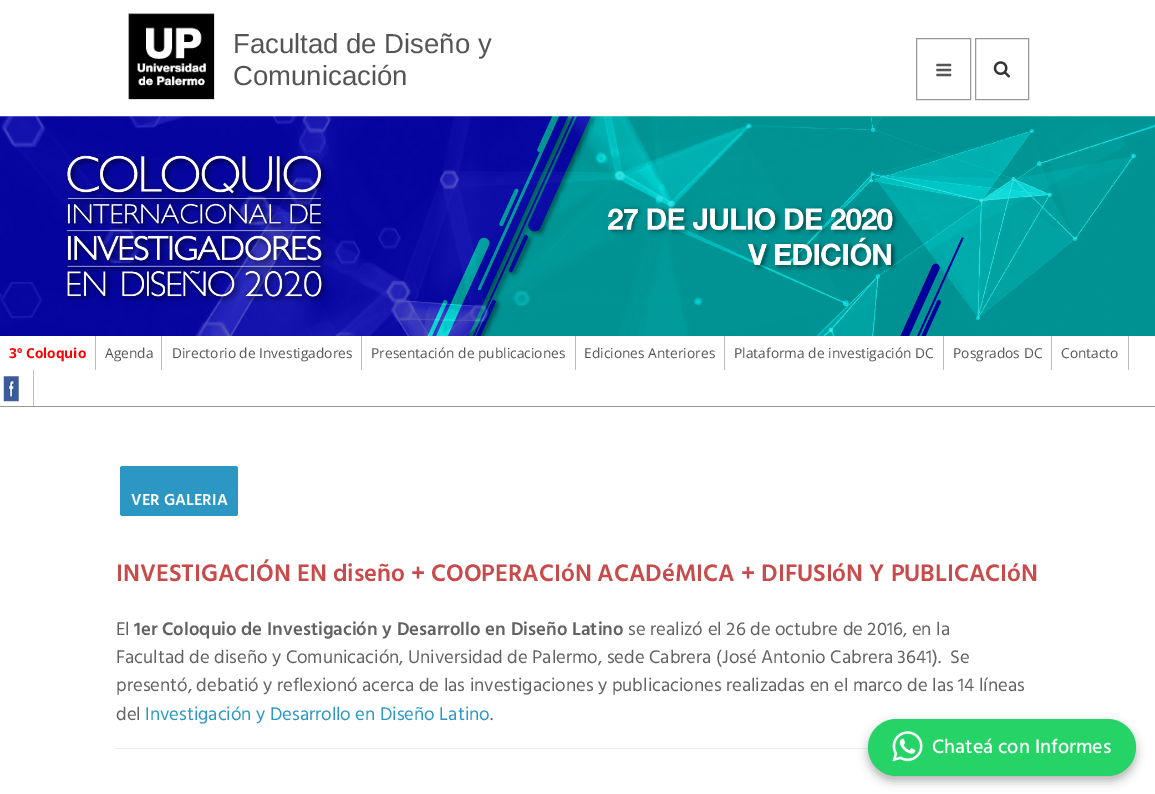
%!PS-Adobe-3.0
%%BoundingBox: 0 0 1155 794
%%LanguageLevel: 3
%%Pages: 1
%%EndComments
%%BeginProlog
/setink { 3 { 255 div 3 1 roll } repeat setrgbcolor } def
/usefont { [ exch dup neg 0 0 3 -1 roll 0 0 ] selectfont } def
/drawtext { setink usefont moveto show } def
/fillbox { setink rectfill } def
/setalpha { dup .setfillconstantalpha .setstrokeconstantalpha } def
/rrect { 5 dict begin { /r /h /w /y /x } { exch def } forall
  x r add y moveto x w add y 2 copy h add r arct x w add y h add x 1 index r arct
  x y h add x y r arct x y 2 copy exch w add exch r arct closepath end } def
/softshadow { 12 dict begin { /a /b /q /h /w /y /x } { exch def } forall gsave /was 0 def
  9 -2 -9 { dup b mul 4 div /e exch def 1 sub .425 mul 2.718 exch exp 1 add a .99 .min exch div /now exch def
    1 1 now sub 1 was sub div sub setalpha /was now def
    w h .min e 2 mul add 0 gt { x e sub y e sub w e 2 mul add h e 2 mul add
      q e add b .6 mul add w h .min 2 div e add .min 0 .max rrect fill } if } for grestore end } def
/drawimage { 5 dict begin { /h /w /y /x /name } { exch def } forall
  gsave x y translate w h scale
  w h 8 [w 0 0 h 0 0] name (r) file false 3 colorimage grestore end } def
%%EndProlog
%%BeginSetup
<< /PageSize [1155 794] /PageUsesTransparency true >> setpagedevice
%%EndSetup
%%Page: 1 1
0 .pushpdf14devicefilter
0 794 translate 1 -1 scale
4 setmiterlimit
0 0 1155 794 255 255 255 fillbox
(assets/img1.rgb) 128 13 87 87 drawimage
(Facultad de Diseño y) 233 53 /LiberationSans-Regular 27.5 84 84 84 drawtext
(Comunicación) 233 85 /LiberationSans-Regular 27.5 84 84 84 drawtext
153 153 153 setink
916.5 38.5 54 61 rectstroke
(assets/img2.rgb) 936 63 16 14 drawimage
975.5 38.5 53 61 rectstroke
(assets/img3.rgb) 993 61 17 17 drawimage
(assets/img4.rgb) 0 116 1155 220 drawimage
0 406 1155 1 153 153 153 fillbox
95 336 1 34 190 186 186 fillbox
(3º Coloquio) 9 358 /OpenSans-Bold 13.75 255 0 0 drawtext
161 336 1 34 190 186 186 fillbox
(Agenda) 105 358 /OpenSans-Regular 13.75 84 84 84 drawtext
361 336 1 34 190 186 186 fillbox
(Directorio de Investigadores) 172 358 /OpenSans-Regular 13.75 84 84 84 drawtext
575 336 1 34 190 186 186 fillbox
(Presentación de publicaciones) 371 358 /OpenSans-Regular 13.75 84 84 84 drawtext
724 336 1 34 190 186 186 fillbox
(Ediciones Anteriores) 584 358 /OpenSans-Regular 13.75 84 84 84 drawtext
943 336 1 34 190 186 186 fillbox
(Plataforma de investigación DC) 734 358 /OpenSans-Regular 13.75 84 84 84 drawtext
1051 336 1 34 190 186 186 fillbox
(Posgrados DC) 953 358 /OpenSans-Regular 13.75 84 84 84 drawtext
1128 336 1 34 190 186 186 fillbox
(Contacto) 1061 358 /OpenSans-Regular 13.75 84 84 84 drawtext
33 370 1 36 190 186 186 fillbox
(assets/img5.rgb) 3 376 16 26 drawimage
43 151 194 setink
120 466 118 50 2.5 rrect fill
(VER GALERIA) 131 505 /Hind-SemiBold 16.25 255 255 255 drawtext
(INVESTIGACIÓN EN diseño + COOPERACIóN ACADéMICA + DIFUSIóN Y PUBLICACIóN) 116 581 /Hind-SemiBold 24.5 201 74 74 drawtext
(El) 116 635 /Hind-Regular 18.75 98 98 98 drawtext
(1er Coloquio de Investigación y Desarrollo en Diseño Latino) 134 635 /Hind-SemiBold 18.75 98 98 98 drawtext
(se realizó el 26 de octubre de 2016, en la) 628 635 /Hind-Regular 18.75 98 98 98 drawtext
(Facultad de diseño y Comunicación, Universidad de Palermo, sede Cabrera \(José Antonio Cabrera 3641\).  Se) 116 663 /Hind-Regular 18.75 98 98 98 drawtext
(presentó, debatió y reflexionó acerca de las investigaciones y publicaciones realizadas en el marco de las 14 líneas) 116 691 /Hind-Regular 18.75 98 98 98 drawtext
(del) 116 720 /Hind-Regular 18.75 98 98 98 drawtext
(Investigación y Desarrollo en Diseño Latino) 145 720 /Hind-Regular 18.75 43 151 194 drawtext
(.) 490 720 /Hind-Regular 18.75 98 98 98 drawtext
115 748 754 1 238 238 238 fillbox
0 0 0 setink
868 724 268 57 28.5 5 0.3 softshadow
37 211 102 setink
868 719 268 57 28.5 rrect fill
(assets/img6.rgb) 892 731 31 31 drawimage
(Chateá con Informes) 932 753 /Hind-Medium 20 255 255 255 drawtext
.poppdf14devicefilter showpage
%%EOF
